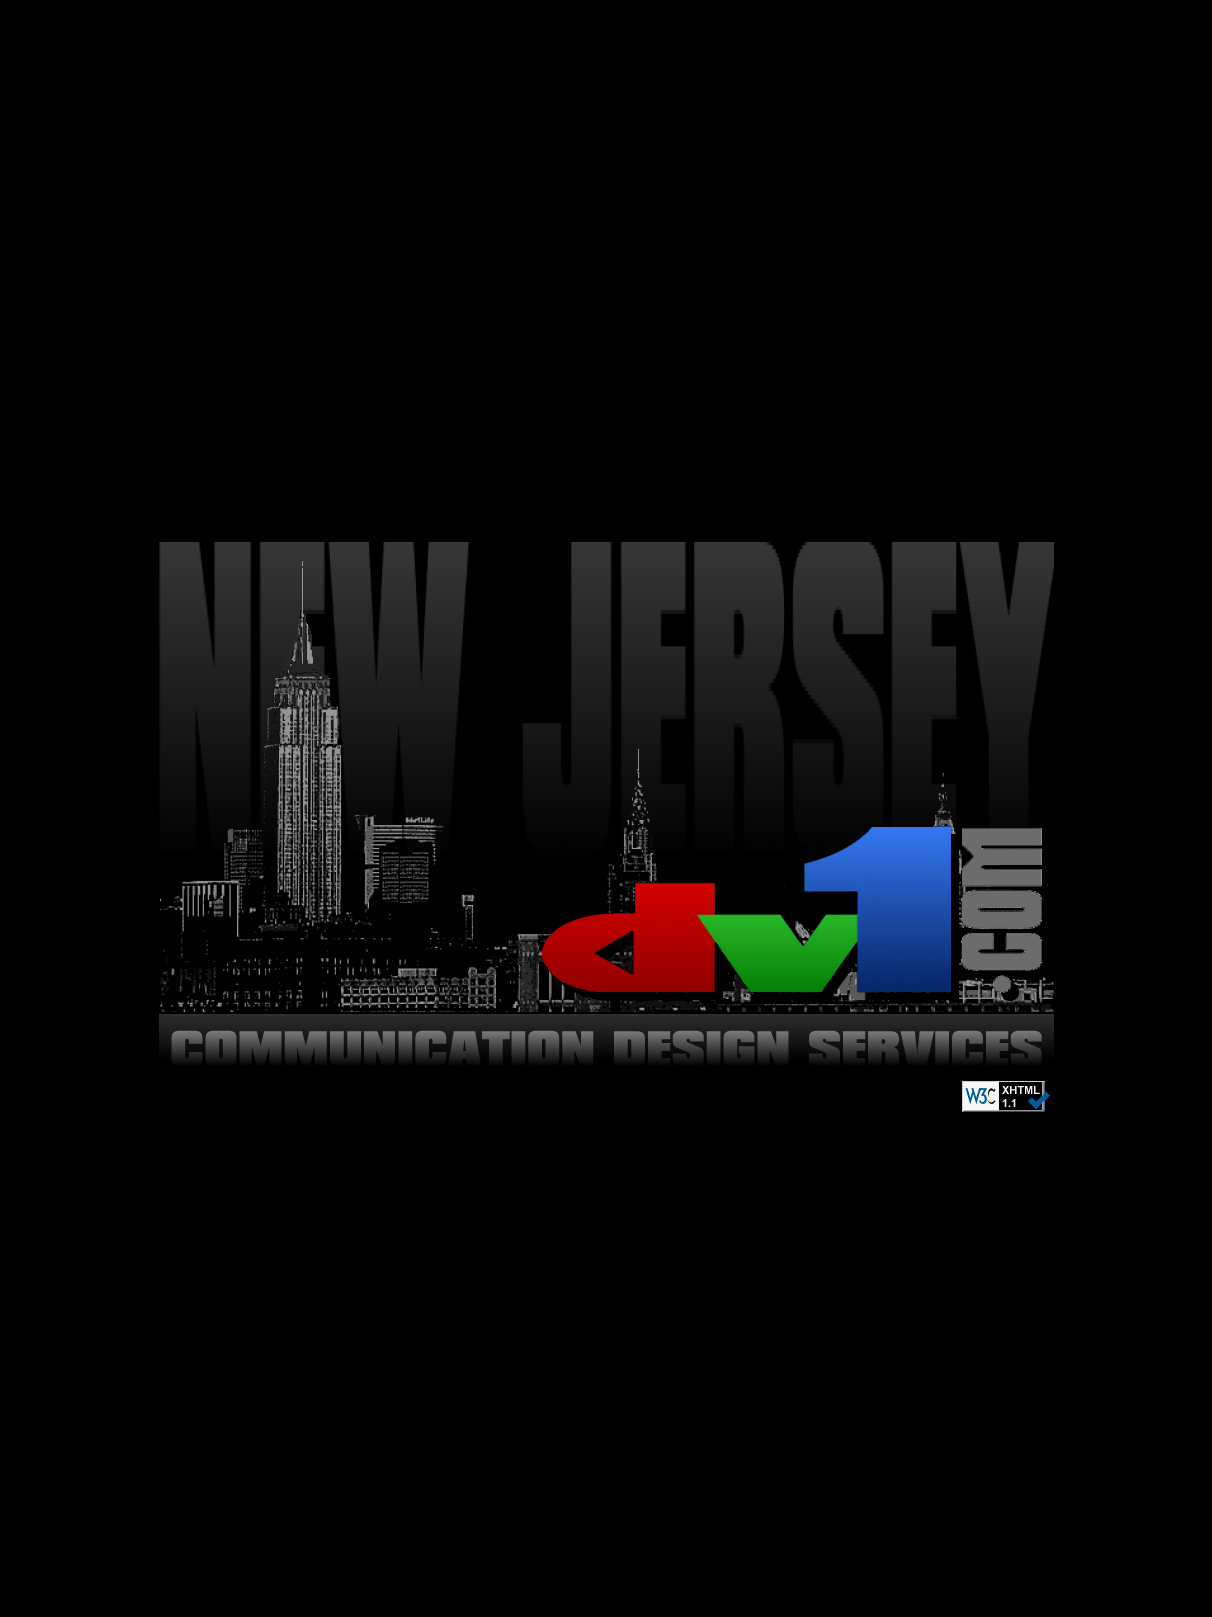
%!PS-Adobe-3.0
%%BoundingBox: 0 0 1212 1617
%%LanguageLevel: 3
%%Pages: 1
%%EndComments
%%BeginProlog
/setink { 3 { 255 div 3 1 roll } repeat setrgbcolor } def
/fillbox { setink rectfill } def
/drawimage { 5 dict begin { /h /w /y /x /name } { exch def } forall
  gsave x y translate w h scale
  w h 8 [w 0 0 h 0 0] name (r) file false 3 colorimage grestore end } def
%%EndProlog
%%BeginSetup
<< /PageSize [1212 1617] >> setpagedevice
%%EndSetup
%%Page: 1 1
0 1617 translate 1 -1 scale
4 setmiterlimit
0 0 1212 1617 0 0 0 fillbox
(assets/img1.rgb) 159 542 895 523 drawimage
1047 885 1 1 60 60 60 fillbox
(assets/img2.rgb) 962 1081 88 31 drawimage
showpage
%%EOF
